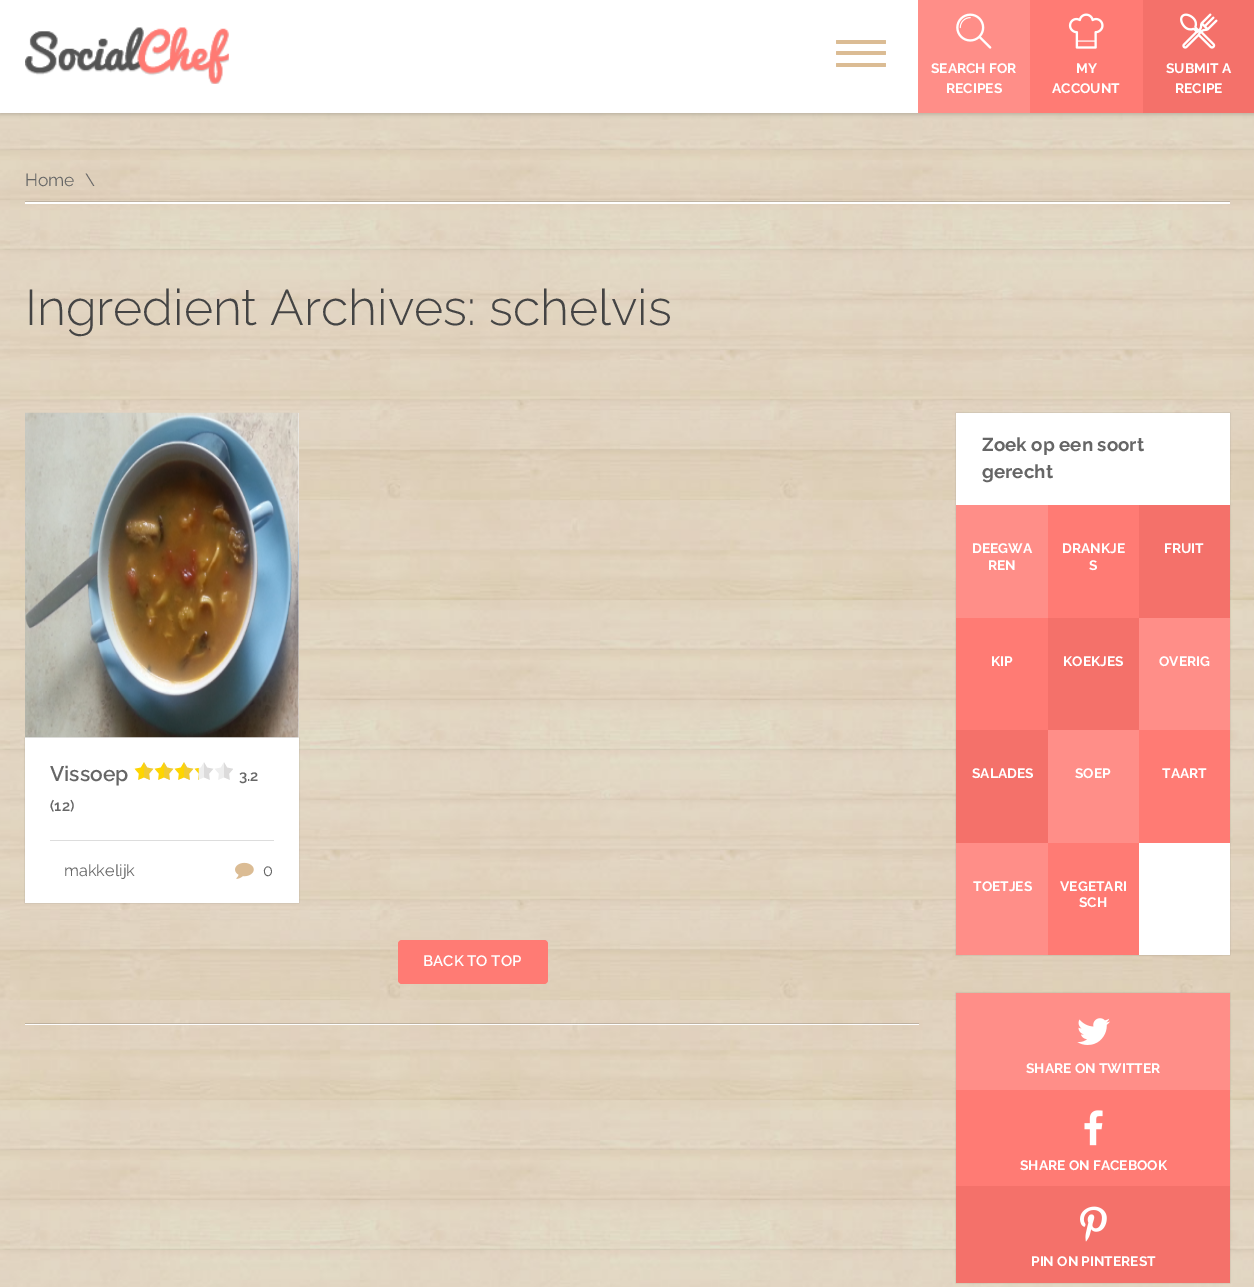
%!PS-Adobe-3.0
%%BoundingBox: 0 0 1254 1287
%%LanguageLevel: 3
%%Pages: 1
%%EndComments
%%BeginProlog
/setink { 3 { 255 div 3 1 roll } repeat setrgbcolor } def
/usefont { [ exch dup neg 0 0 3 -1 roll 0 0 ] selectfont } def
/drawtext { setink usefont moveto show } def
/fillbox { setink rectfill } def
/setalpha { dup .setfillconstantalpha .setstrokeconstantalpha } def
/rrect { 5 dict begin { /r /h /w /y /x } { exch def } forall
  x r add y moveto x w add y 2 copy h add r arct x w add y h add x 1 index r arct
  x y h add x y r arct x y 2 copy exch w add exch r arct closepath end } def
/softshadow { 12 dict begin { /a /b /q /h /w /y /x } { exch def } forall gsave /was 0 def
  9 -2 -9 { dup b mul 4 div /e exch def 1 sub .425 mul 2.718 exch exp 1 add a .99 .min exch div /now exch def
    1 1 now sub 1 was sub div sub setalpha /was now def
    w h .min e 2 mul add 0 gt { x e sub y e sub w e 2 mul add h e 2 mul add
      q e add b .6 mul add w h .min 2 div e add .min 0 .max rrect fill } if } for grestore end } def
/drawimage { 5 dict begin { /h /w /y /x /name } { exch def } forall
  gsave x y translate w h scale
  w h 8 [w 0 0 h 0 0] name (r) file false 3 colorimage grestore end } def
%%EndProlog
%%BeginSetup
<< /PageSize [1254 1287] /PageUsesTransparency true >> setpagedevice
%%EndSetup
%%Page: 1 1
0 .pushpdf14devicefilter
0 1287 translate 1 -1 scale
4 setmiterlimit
0 0 1254 1287 255 255 255 fillbox
(assets/img1.rgb) 0 113 1254 1174 drawimage
0 0 0 setink
0 1 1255 113 0 2.5 0.2 softshadow
0 0 918 113 255 255 255 fillbox
(assets/img2.rgb) 25 27 204 57 drawimage
219 188 148 setink
836 40 50 4 1 rrect fill
836 51 50 4 1 rrect fill
836 63 50 4 1 rrect fill
918 0 112 113 255 142 136 fillbox
(assets/img3.rgb) 956 13 36 36 drawimage
(SEARCH FOR) 931 73 /Raleway-Bold 13.75 255 255 255 drawtext
(RECIPES) 946 93 /Raleway-Bold 13.75 255 255 255 drawtext
1030 0 113 113 255 123 116 fillbox
(assets/img4.rgb) 1068 13 36 36 drawimage
(MY) 1076 73 /Raleway-Bold 13.75 255 255 255 drawtext
(ACCOUNT) 1052 93 /Raleway-Bold 13.75 255 255 255 drawtext
1143 0 111 113 244 113 106 fillbox
(assets/img5.rgb) 1180 13 38 36 drawimage
(SUBMIT A) 1166 73 /Raleway-Bold 13.75 255 255 255 drawtext
(RECIPE) 1175 93 /Raleway-Bold 13.75 255 255 255 drawtext
25 202 1205 2 255 255 255 fillbox
0.15 setalpha
25 201 1205 1 0 0 0 fillbox
1 setalpha
(Home) 25 186 /Raleway-Regular 17.5 102 102 102 drawtext
(\\) 85 186 /Raleway-Regular 17.5 102 102 102 drawtext
(Ingredient Archives: schelvis) 25 325 /Raleway-Light 50 68 68 68 drawtext
25 413 274 325 250 250 250 fillbox
(assets/img6.rgb) 25 412 274 326 drawimage
0 0 0 setink
25 738 274 165 0 0.5 0.2 softshadow
25 738 274 165 255 255 255 fillbox
(Vissoep) 50 781 /Raleway-SemiBold 21 102 102 102 drawtext
(assets/img7.rgb) 135 762 98 18 drawimage
(assets/img8.rgb) 133 762 66 18 drawimage
(3.2) 239 781 /Raleway-SemiBold 15 102 102 102 drawtext
(\(12\)) 50 811 /Raleway-SemiBold 15 102 102 102 drawtext
50 840 224 1 221 221 221 fillbox
(makkelijk) 64 876 /Raleway-Regular 16.25 102 102 102 drawtext
(assets/img9.rgb) 235 862 19 17 drawimage
(0) 263 876 /Raleway-Regular 16.25 102 102 102 drawtext
255 123 116 setink
398 940 150 44 4 rrect fill
(BACK TO TOP) 423 966 /Raleway-SemiBold 15 255 255 255 drawtext
0.15 setalpha
0 0 0 setink
25 1023 moveto 25 1024 lineto 919 1024 lineto 919 1061 lineto 919 1023 lineto closepath fill
1 setalpha
25 1024 894 1 255 255 255 fillbox
0 0 0 setink
956 413 274 542 0 0.5 0.2 softshadow
956 413 274 542 255 255 255 fillbox
(Zoek op een soort) 982 451 /Raleway-Bold 18.75 102 102 102 drawtext
(gerecht) 982 478 /Raleway-Bold 18.75 102 102 102 drawtext
956 505 92 113 255 142 136 fillbox
(DEEGWA) 972 553 /Raleway-Bold 13.75 255 255 255 drawtext
(REN) 988 570 /Raleway-Bold 13.75 255 255 255 drawtext
1048 505 91 113 255 123 116 fillbox
(DRANKJE) 1062 553 /Raleway-Bold 13.75 255 255 255 drawtext
(S) 1089 570 /Raleway-Bold 13.75 255 255 255 drawtext
1139 505 91 113 244 113 106 fillbox
(FRUIT) 1164 553 /Raleway-Bold 13.75 255 255 255 drawtext
956 618 92 112 255 123 116 fillbox
(KIP) 991 666 /Raleway-Bold 13.75 255 255 255 drawtext
1048 618 91 112 244 113 106 fillbox
(KOEKJES) 1063 666 /Raleway-Bold 13.75 255 255 255 drawtext
1139 618 91 112 255 142 136 fillbox
(OVERIG) 1159 666 /Raleway-Bold 13.75 255 255 255 drawtext
956 730 92 113 244 113 106 fillbox
(SALADES) 972 778 /Raleway-Bold 13.75 255 255 255 drawtext
1048 730 91 113 255 142 136 fillbox
(SOEP) 1075 778 /Raleway-Bold 13.75 255 255 255 drawtext
1139 730 91 113 255 123 116 fillbox
(TAART) 1162 778 /Raleway-Bold 13.75 255 255 255 drawtext
956 843 92 112 255 142 136 fillbox
(TOETJES) 973 891 /Raleway-Bold 13.75 255 255 255 drawtext
1048 843 91 112 255 123 116 fillbox
(VEGETARI) 1060 891 /Raleway-Bold 13.75 255 255 255 drawtext
(SCH) 1079 907 /Raleway-Bold 13.75 255 255 255 drawtext
0 0 0 setink
956 993 274 290 0 0.5 0.2 softshadow
956 993 274 97 255 142 136 fillbox
(assets/img10.rgb) 1077 1018 33 27 drawimage
(SHARE ON TWITTER) 1026 1073 /Raleway-Bold 13.75 255 255 255 drawtext
956 1090 274 96 255 123 116 fillbox
(assets/img11.rgb) 1084 1110 19 36 drawimage
(SHARE ON FACEBOOK) 1020 1170 /Raleway-Bold 13.75 255 255 255 drawtext
956 1186 274 97 244 113 106 fillbox
(assets/img12.rgb) 1080 1206 27 36 drawimage
(PIN ON PINTEREST) 1031 1266 /Raleway-Bold 13.75 255 255 255 drawtext
.poppdf14devicefilter showpage
%%EOF
